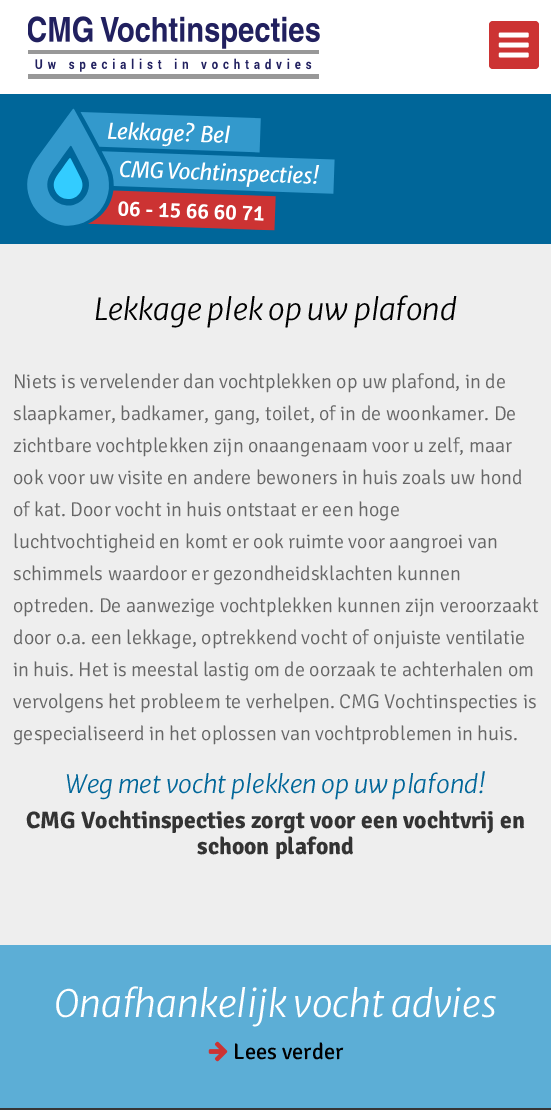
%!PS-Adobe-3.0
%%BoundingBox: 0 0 551 1110
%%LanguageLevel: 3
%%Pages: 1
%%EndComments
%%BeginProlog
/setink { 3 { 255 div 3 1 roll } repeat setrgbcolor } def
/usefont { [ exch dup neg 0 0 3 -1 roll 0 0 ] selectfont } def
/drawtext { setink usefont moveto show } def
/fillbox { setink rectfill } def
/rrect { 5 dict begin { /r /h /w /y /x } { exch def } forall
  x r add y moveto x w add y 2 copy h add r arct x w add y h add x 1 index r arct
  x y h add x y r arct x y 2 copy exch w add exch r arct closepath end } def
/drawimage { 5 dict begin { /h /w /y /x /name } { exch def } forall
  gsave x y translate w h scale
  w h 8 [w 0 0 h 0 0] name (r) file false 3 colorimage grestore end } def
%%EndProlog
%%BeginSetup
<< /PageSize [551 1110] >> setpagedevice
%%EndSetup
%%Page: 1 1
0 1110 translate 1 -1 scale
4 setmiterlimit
0 0 551 1110 238 238 238 fillbox
0 0 551 94 255 255 255 fillbox
(assets/img1.rgb) 28 16 292 63 drawimage
204 51 51 setink
489 21 50 48 4 rrect fill
(assets/img2.rgb) 498 32 31 26 drawimage
0 94 551 150 0 102 153 fillbox
(assets/img3.rgb) 27 108 308 123 drawimage
(Lekkage plek op uw plafond) 94 320 /MerriweatherSans-LightItalic 30 0 0 0 drawtext
(Niets is vervelender dan vochtplekken op uw plafond, in de) 13 388 /Signika-Light 20 102 102 102 drawtext
(slaapkamer, badkamer, gang, toilet, of in de woonkamer. De) 13 420 /Signika-Light 20 102 102 102 drawtext
(zichtbare vochtplekken zijn onaangenaam voor u zelf, maar) 13 452 /Signika-Light 20 102 102 102 drawtext
(ook voor uw visite en andere bewoners in huis zoals uw hond) 13 484 /Signika-Light 20 102 102 102 drawtext
(of kat. Door vocht in huis ontstaat er een hoge) 13 516 /Signika-Light 20 102 102 102 drawtext
(luchtvochtigheid en komt er ook ruimte voor aangroei van) 13 548 /Signika-Light 20 102 102 102 drawtext
(schimmels waardoor er gezondheidsklachten kunnen) 13 580 /Signika-Light 20 102 102 102 drawtext
(optreden. De aanwezige vochtplekken kunnen zijn veroorzaakt) 13 612 /Signika-Light 20 102 102 102 drawtext
(door o.a. een lekkage, optrekkend vocht of onjuiste ventilatie) 13 644 /Signika-Light 20 102 102 102 drawtext
(in huis. Het is meestal lastig om de oorzaak te achterhalen om) 13 676 /Signika-Light 20 102 102 102 drawtext
(vervolgens het probleem te verhelpen. CMG Vochtinspecties is) 13 708 /Signika-Light 20 102 102 102 drawtext
(gespecialiseerd in het oplossen van vochtproblemen in huis.) 13 740 /Signika-Light 20 102 102 102 drawtext
(Weg met vocht plekken op uw plafond!) 65 793 /MerriweatherSans-LightItalic 25 0 102 153 drawtext
(CMG Vochtinspecties zorgt voor een vochtvrij en) 26 828 /Signika-Bold 23.75 51 51 51 drawtext
(schoon plafond) 197 854 /Signika-Bold 23.75 51 51 51 drawtext
0 1108 551 2 54 54 54 fillbox
0 945 551 163 92 174 214 fillbox
(Onafhankelijk vocht advies) 54 1017 /MerriweatherSans-LightItalic 37.5 255 255 255 drawtext
(assets/img4.rgb) 208 1041 20 21 drawimage
(Lees verder) 233 1059 /Signika-Regular 22.5 0 0 0 drawtext
showpage
%%EOF
